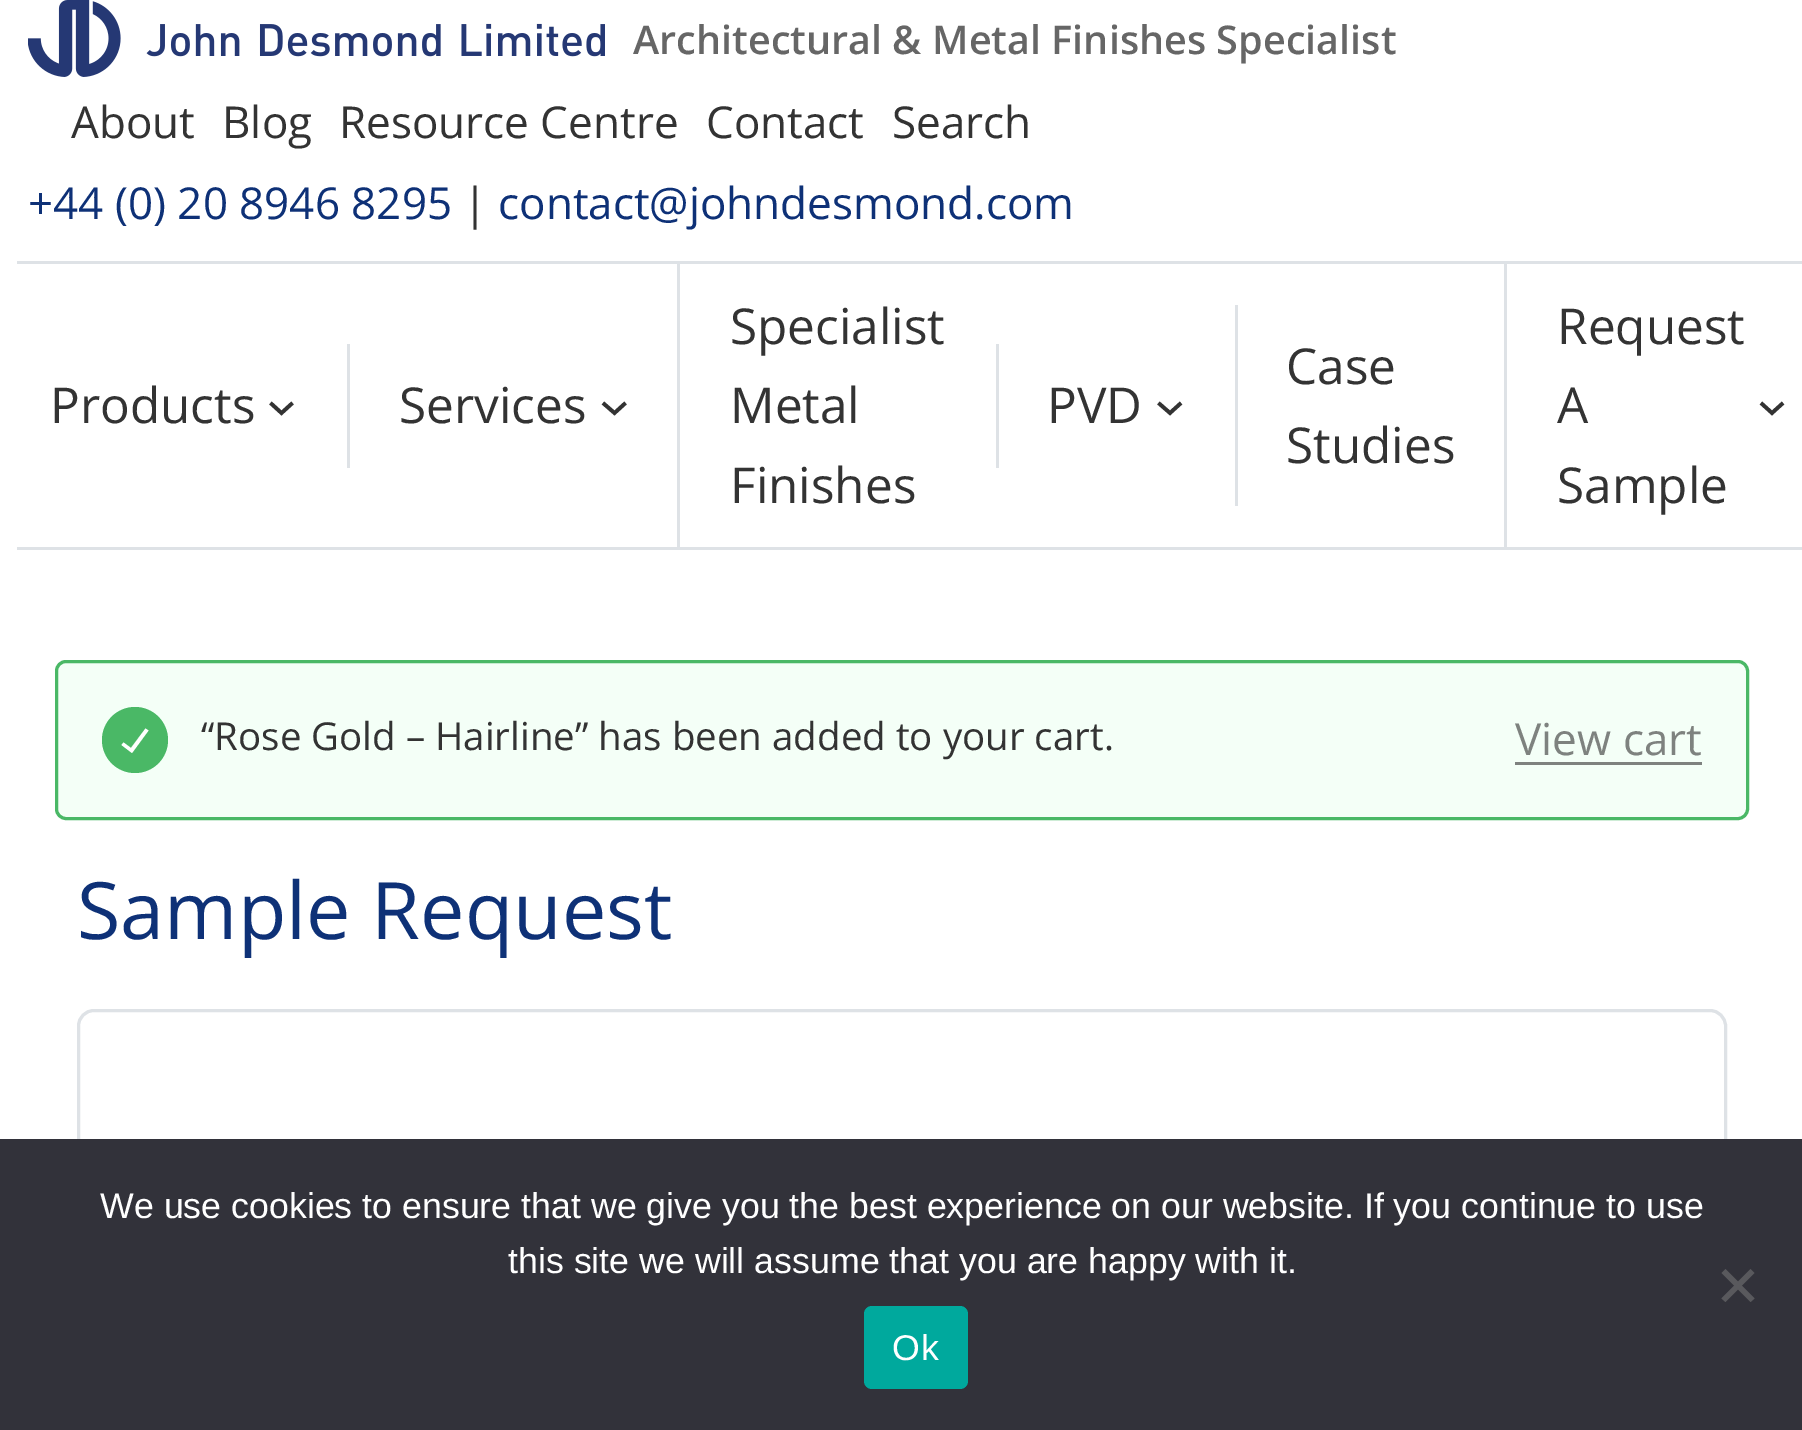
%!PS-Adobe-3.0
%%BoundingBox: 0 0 1802 1430
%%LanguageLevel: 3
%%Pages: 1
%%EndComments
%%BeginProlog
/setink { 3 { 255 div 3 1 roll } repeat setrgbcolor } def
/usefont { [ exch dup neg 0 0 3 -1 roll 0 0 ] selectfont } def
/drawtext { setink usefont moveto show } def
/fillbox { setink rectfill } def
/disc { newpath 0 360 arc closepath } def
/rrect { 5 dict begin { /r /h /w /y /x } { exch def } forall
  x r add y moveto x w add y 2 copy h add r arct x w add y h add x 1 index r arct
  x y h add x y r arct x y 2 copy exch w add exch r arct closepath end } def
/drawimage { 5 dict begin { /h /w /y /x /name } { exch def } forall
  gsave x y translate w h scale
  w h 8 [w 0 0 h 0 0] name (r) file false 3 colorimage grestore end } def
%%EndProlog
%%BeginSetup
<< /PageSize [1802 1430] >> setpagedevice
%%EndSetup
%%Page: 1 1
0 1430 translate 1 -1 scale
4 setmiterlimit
0 0 1802 1430 255 255 255 fillbox
(assets/img1.rgb) 28 0 577 77 drawimage
(Architectural & Metal Finishes Specialist) 633 54 /OpenSans-SemiBold 39.6 102 102 102 drawtext
(About) 71 138 /OpenSans-Regular 44 51 51 51 drawtext
(Blog) 222 138 /OpenSans-Regular 44 51 51 51 drawtext
(Resource Centre) 339 138 /OpenSans-Regular 44 51 51 51 drawtext
(Contact) 706 138 /OpenSans-Regular 44 51 51 51 drawtext
(Search) 892 138 /OpenSans-Regular 44 51 51 51 drawtext
(+44 \(0\) 20 8946 8295) 28 219 /OpenSans-Regular 44 14 49 119 drawtext
(|) 463 219 /OpenSans-Regular 44 51 51 51 drawtext
(contact@johndesmond.com) 498 219 /OpenSans-Regular 44 14 49 119 drawtext
17 261 1785 3 222 226 230 fillbox
(Products) 50 423 /OpenSans-Regular 49.5 51 51 51 drawtext
3.7 setlinewidth
270.5 403 moveto 281.5 413 lineto 292.5 403 lineto stroke
347 344 3 124 222 226 230 fillbox
(Services) 399 423 /OpenSans-Regular 49.5 51 51 51 drawtext
603 403 moveto 614.5 413 lineto 625.5 403 lineto stroke
677 264 3 283 222 226 230 fillbox
(Specialist) 730 344 /OpenSans-Regular 49.5 51 51 51 drawtext
(Metal) 730 423 /OpenSans-Regular 49.5 51 51 51 drawtext
(Finishes) 730 503 /OpenSans-Regular 49.5 51 51 51 drawtext
996 344 3 124 222 226 230 fillbox
(PVD) 1047 423 /OpenSans-Regular 49.5 51 51 51 drawtext
1158.5 403 moveto 1170 413 lineto 1181 403 lineto stroke
1235 305 3 201 222 226 230 fillbox
(Case) 1286 384 /OpenSans-Regular 49.5 51 51 51 drawtext
(Studies) 1286 463 /OpenSans-Regular 49.5 51 51 51 drawtext
1504 264 3 283 222 226 230 fillbox
(Request) 1557 344 /OpenSans-Regular 49.5 51 51 51 drawtext
(A) 1557 423 /OpenSans-Regular 49.5 51 51 51 drawtext
(Sample) 1557 503 /OpenSans-Regular 49.5 51 51 51 drawtext
1761 403 moveto 1772 413 lineto 1783 403 lineto stroke
17 547 1785 3 222 226 230 fillbox
244 255 247 setink
56.5 661.5 1691 157 9.5 rrect gsave fill grestore
74 184 102 setink
3 setlinewidth
stroke
135 740 33 disc fill
255 255 255 setink
145.5 728.5 moveto 131 748 lineto 123.5 742.5 lineto 121.5 745 lineto 132 753 lineto 148.5 730.5 lineto closepath fill
(“Rose Gold – Hairline” has been added to your cart.) 201 750 /OpenSans-Regular 38.5 51 51 51 drawtext
(View cart) 1515 755 /OpenSans-Regular 44 126 130 127 drawtext
1515 762 187 3 126 130 127 fillbox
(Sample Request) 77 939 /OpenSans-Regular 79.25 14 49 119 drawtext
222 226 230 setink
78.5 1010.5 1647 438 15.5 rrect stroke
0 1139 1802 291 50 50 58 fillbox
(We use cookies to ensure that we give you the best experience on our website. If you continue to use) 100 1218 /LiberationSans-Regular 35.75 255 255 255 drawtext
(this site we will assume that you are happy with it.) 508 1273 /LiberationSans-Regular 35.75 255 255 255 drawtext
89 89 93 setink
1750.5 1269 moveto 1754.5 1273 lineto 1725.5 1302 lineto 1721.5 1298.5 lineto closepath fill
1721.5 1273 moveto 1725.5 1269 lineto 1754.5 1298.5 lineto 1750.5 1302 lineto closepath fill
0 169 157 setink
864 1306 104 83 8 rrect fill
255 255 255 setink
892 1360 moveto 1 0 (Ok) ashow
showpage
%%EOF
